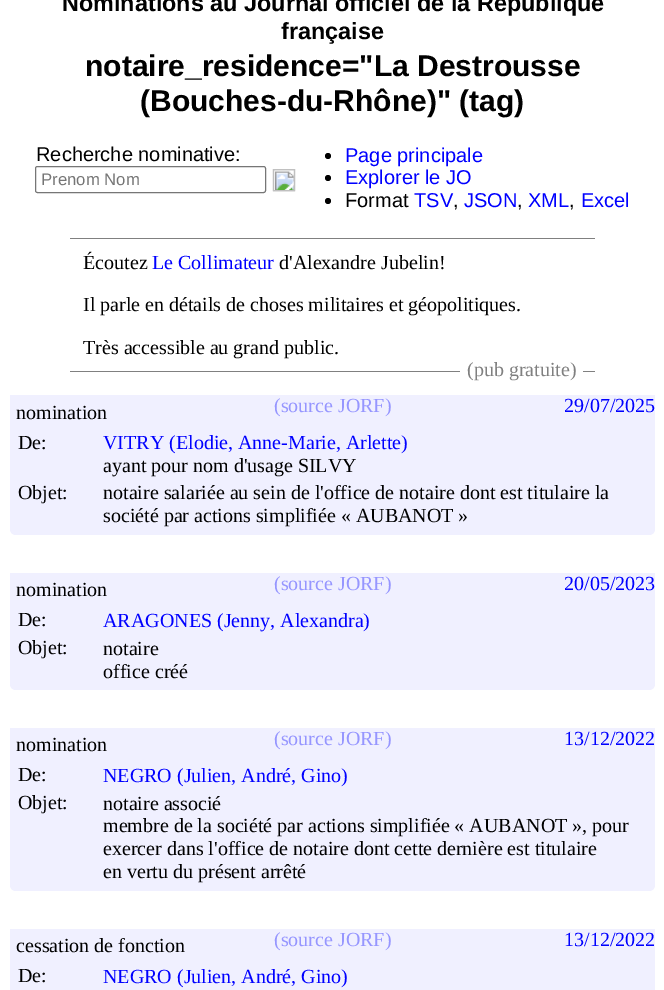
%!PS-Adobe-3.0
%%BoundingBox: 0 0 664 990
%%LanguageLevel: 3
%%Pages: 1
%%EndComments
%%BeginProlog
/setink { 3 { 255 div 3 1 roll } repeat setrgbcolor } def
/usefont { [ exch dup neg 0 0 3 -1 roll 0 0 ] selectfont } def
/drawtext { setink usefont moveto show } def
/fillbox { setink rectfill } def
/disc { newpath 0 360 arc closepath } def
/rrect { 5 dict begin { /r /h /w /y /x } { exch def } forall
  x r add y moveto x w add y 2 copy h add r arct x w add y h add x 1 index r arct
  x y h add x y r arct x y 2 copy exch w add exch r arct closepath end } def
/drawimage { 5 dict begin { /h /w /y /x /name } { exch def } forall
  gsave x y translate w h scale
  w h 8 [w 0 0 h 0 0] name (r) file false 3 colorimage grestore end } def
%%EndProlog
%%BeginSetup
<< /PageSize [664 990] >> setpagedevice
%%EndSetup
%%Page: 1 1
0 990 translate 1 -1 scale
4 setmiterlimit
0 0 664 990 255 255 255 fillbox
(Nominations au Journal officiel de la République) 62 11 /LiberationSans-Bold 23.4 0 0 0 drawtext
(française) 281 39 /LiberationSans-Bold 23.4 0 0 0 drawtext
(notaire_residence="La Destrousse) 85 76 /LiberationSans-Bold 30 0 0 0 drawtext
(\(Bouches-du-Rhône\)" \(tag\)) 140 111 /LiberationSans-Bold 30 0 0 0 drawtext
(Recherche nominative:) 36 161 /LiberationSans-Regular 20 0 0 0 drawtext
118 118 118 setink
35.5 166.5 230 26 2 rrect stroke
(Prenom Nom) 41 185 /LiberationSans-Regular 16.75 117 117 117 drawtext
(assets/img1.rgb) 272 169 23 23 drawimage
192 192 192 setink
273.5 169.5 21 21 rectstroke
0 0 0 setink
328 156 3 disc fill
(Page principale) 345 162 /LiberationSans-Regular 20 0 0 255 drawtext
0 0 0 setink
328 178 3 disc fill
(Explorer le JO) 345 184 /LiberationSans-Regular 20 0 0 255 drawtext
0 0 0 setink
328 201 3 disc fill
(Format) 345 207 /LiberationSans-Regular 20 0 0 0 drawtext
(TSV) 414 207 /LiberationSans-Regular 20 0 0 255 drawtext
(JSON) 464 207 /LiberationSans-Regular 20 0 0 255 drawtext
(XML) 528 207 /LiberationSans-Regular 20 0 0 255 drawtext
(Excel) 581 207 /LiberationSans-Regular 20 0 0 255 drawtext
(,) 453 207 /LiberationSans-Regular 20 0 0 0 drawtext
(,) 517 207 /LiberationSans-Regular 20 0 0 0 drawtext
(,) 569 207 /LiberationSans-Regular 20 0 0 0 drawtext
70 238 525 1 128 128 128 fillbox
70 371 525 1 128 128 128 fillbox
(Écoutez) 83 269 /LiberationSerif-Regular 20 0 0 0 drawtext
(Le Collimateur) 152 269 /LiberationSerif-Regular 20 0 0 255 drawtext
(d'Alexandre Jubelin!) 279 269 /LiberationSerif-Regular 20 0 0 0 drawtext
(Il parle en détails de choses militaires et géopolitiques.) 83 311 /LiberationSerif-Regular 20 0 0 0 drawtext
(Très accessible au grand public.) 83 354 /LiberationSerif-Regular 20 0 0 0 drawtext
460 371 123 1 255 255 255 fillbox
(\(pub gratuite\)) 467 376 /LiberationSerif-Regular 20 128 128 128 drawtext
240 240 255 setink
10 395 moveto 655 395 lineto 655 529 lineto 655 532.5 652.5 535 649 535 curveto 16 535 lineto 12.5 535 10 532.5 10 529 curveto closepath fill
(nomination) 16 419 /LiberationSerif-Regular 20 0 0 0 drawtext
(\(source JORF\)) 274 412 /LiberationSerif-Regular 20 150 150 255 drawtext
(29/07/2025) 564 412 /LiberationSerif-Regular 20 0 0 255 drawtext
(De:) 18 449 /LiberationSerif-Regular 20 0 0 0 drawtext
(VITRY \(Elodie, Anne-Marie, Arlette\)) 103 449 /LiberationSerif-Regular 20 0 0 255 drawtext
(ayant pour nom d'usage SILVY) 103 472 /LiberationSerif-Regular 20 0 0 0 drawtext
(Objet:) 18 499 /LiberationSerif-Regular 20 0 0 0 drawtext
(notaire salariée au sein de l'office de notaire dont est titulaire la) 103 499 /LiberationSerif-Regular 20 0 0 0 drawtext
(société par actions simplifiée « AUBANOT ») 103 522 /LiberationSerif-Regular 20 0 0 0 drawtext
240 240 255 setink
10 573 moveto 655 573 lineto 655 684 lineto 655 687.5 652.5 690 649 690 curveto 16 690 lineto 12.5 690 10 687.5 10 684 curveto closepath fill
(nomination) 16 596 /LiberationSerif-Regular 20 0 0 0 drawtext
(\(source JORF\)) 274 590 /LiberationSerif-Regular 20 150 150 255 drawtext
(20/05/2023) 564 590 /LiberationSerif-Regular 20 0 0 255 drawtext
(De:) 18 626 /LiberationSerif-Regular 20 0 0 0 drawtext
(ARAGONES \(Jenny, Alexandra\)) 103 627 /LiberationSerif-Regular 20 0 0 255 drawtext
(Objet:) 18 654 /LiberationSerif-Regular 20 0 0 0 drawtext
(notaire) 103 655 /LiberationSerif-Regular 20 0 0 0 drawtext
(office créé) 103 678 /LiberationSerif-Regular 20 0 0 0 drawtext
240 240 255 setink
10 728 moveto 655 728 lineto 655 885 lineto 655 888.5 652.5 891 649 891 curveto 16 891 lineto 12.5 891 10 888.5 10 885 curveto closepath fill
(nomination) 16 751 /LiberationSerif-Regular 20 0 0 0 drawtext
(\(source JORF\)) 274 745 /LiberationSerif-Regular 20 150 150 255 drawtext
(13/12/2022) 564 745 /LiberationSerif-Regular 20 0 0 255 drawtext
(De:) 18 781 /LiberationSerif-Regular 20 0 0 0 drawtext
(NEGRO \(Julien, André, Gino\)) 103 782 /LiberationSerif-Regular 20 0 0 255 drawtext
(Objet:) 18 809 /LiberationSerif-Regular 20 0 0 0 drawtext
(notaire associé) 103 810 /LiberationSerif-Regular 20 0 0 0 drawtext
(membre de la société par actions simplifiée « AUBANOT », pour) 103 832 /LiberationSerif-Regular 20 0 0 0 drawtext
(exercer dans l'office de notaire dont cette dernière est titulaire) 103 855 /LiberationSerif-Regular 20 0 0 0 drawtext
(en vertu du présent arrêté) 103 878 /LiberationSerif-Regular 20 0 0 0 drawtext
10 929 645 61 240 240 255 fillbox
(cessation de fonction) 16 952 /LiberationSerif-Regular 20 0 0 0 drawtext
(\(source JORF\)) 274 946 /LiberationSerif-Regular 20 150 150 255 drawtext
(13/12/2022) 564 946 /LiberationSerif-Regular 20 0 0 255 drawtext
(De:) 18 982 /LiberationSerif-Regular 20 0 0 0 drawtext
(NEGRO \(Julien, André, Gino\)) 103 983 /LiberationSerif-Regular 20 0 0 255 drawtext
showpage
%%EOF
